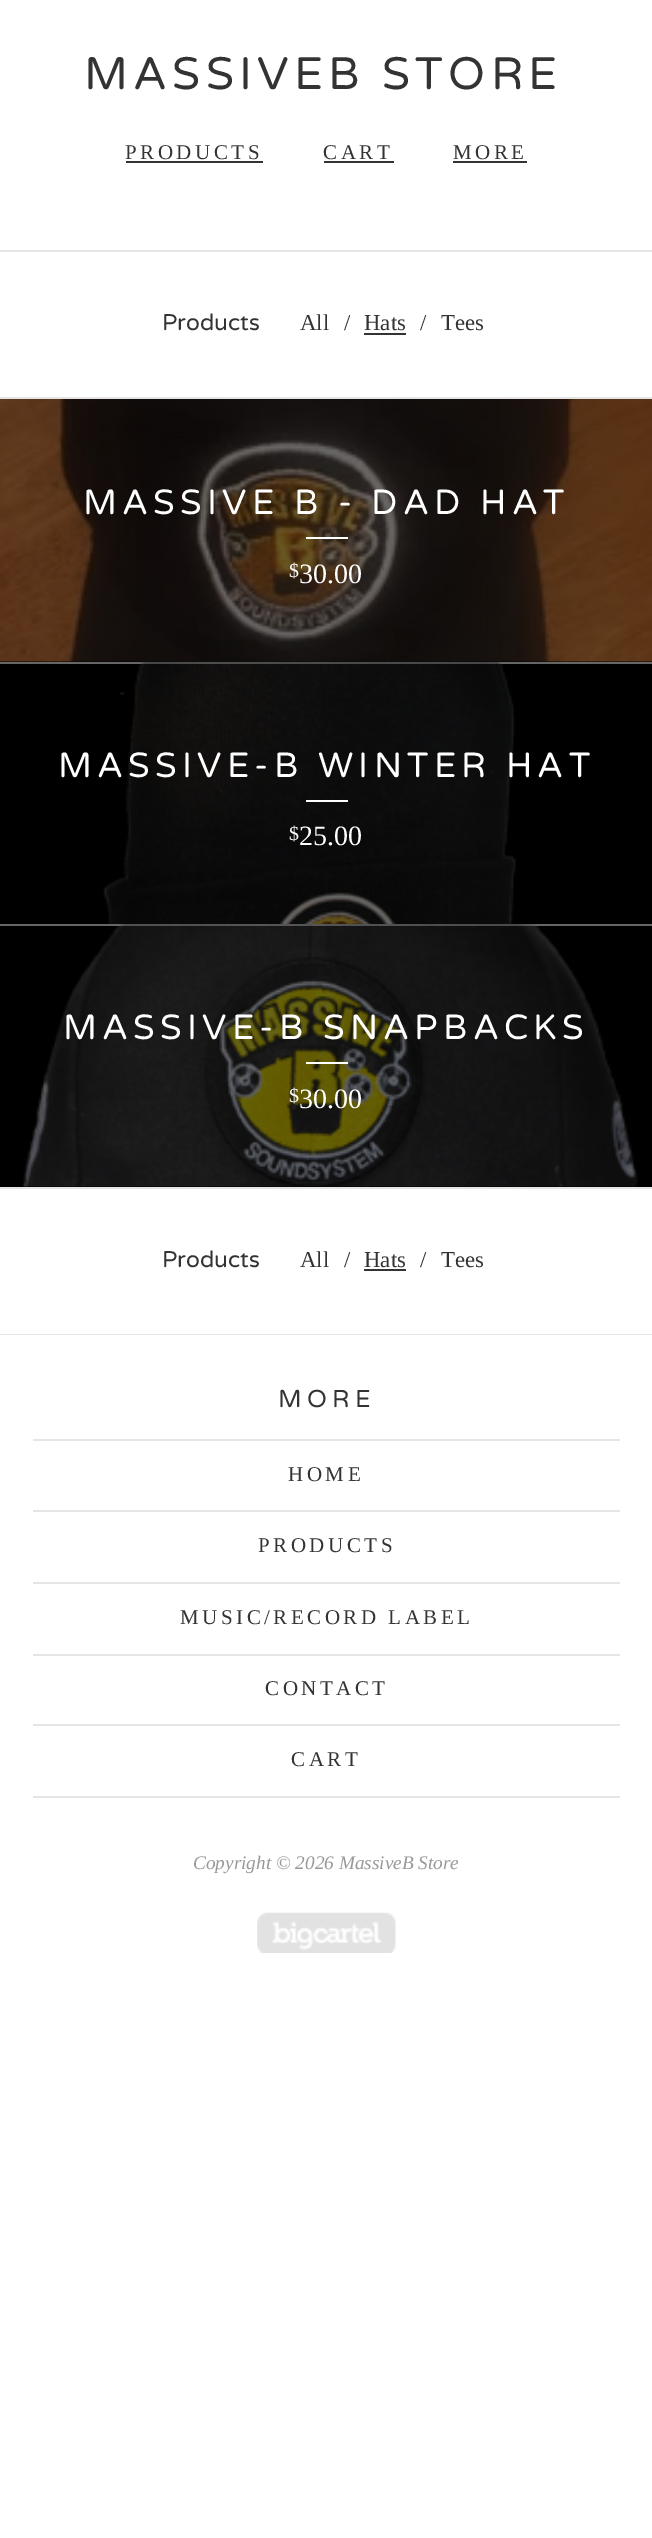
%!PS-Adobe-3.0
%%BoundingBox: 0 0 652 2538
%%LanguageLevel: 3
%%Pages: 1
%%EndComments
%%BeginProlog
/setink { 3 { 255 div 3 1 roll } repeat setrgbcolor } def
/usefont { [ exch dup neg 0 0 3 -1 roll 0 0 ] selectfont } def
/drawtext { setink usefont moveto show } def
/fillbox { setink rectfill } def
/drawimage { 5 dict begin { /h /w /y /x /name } { exch def } forall
  gsave x y translate w h scale
  w h 8 [w 0 0 h 0 0] name (r) file false 3 colorimage grestore end } def
%%EndProlog
%%BeginSetup
<< /PageSize [652 2538] >> setpagedevice
%%EndSetup
%%Page: 1 1
0 2538 translate 1 -1 scale
4 setmiterlimit
0 0 652 2538 255 255 255 fillbox
/VarelaRound-Regular 45.5 usefont
51 51 51 setink
84 89 moveto 5.25 0 (MASSIVEB STORE) ashow
/LiberationSerif-Regular 21 usefont
125 159 moveto 3.5 0 (PRODUCTS) ashow
126 161 137 2 51 51 51 fillbox
323 159 moveto 3.5 0 (CART) ashow
324 161 70 2 51 51 51 fillbox
453 159 moveto 3.5 0 (MORE) ashow
453 161 74 2 51 51 51 fillbox
0 250 652 2 229 229 229 fillbox
0 397 652 2 229 229 229 fillbox
(Products) 162 330 /VarelaRound-Regular 22.75 51 51 51 drawtext
(All) 300 330 /LiberationSerif-Regular 22.75 51 51 51 drawtext
(/) 344 330 /LiberationSerif-Regular 22.75 51 51 51 drawtext
(Hats) 364 330 /LiberationSerif-Regular 22.75 51 51 51 drawtext
364 333 42 2 51 51 51 fillbox
(/) 420 330 /LiberationSerif-Regular 22.75 51 51 51 drawtext
(Tees) 441 330 /LiberationSerif-Regular 22.75 51 51 51 drawtext
0 399 652 263 0 0 0 fillbox
(assets/img1.rgb) 0 399 652 263 drawimage
/VarelaRound-Regular 35 usefont
255 255 255 setink
83 514 moveto 5.25 0 (MASSIVE B - DAD HAT) ashow
306 537 42 2 255 255 255 fillbox
($) 289 577 /LiberationSerif-Regular 20 255 255 255 drawtext
(30.00) 299 583 /LiberationSerif-Regular 28 255 255 255 drawtext
0 664 652 260 0 0 0 fillbox
0 662 652 2 102 102 102 fillbox
(assets/img2.rgb) 103 661 413 263 drawimage
/VarelaRound-Regular 35 usefont
255 255 255 setink
58 777 moveto 5.25 0 (MASSIVE-B WINTER HAT) ashow
306 800 42 2 255 255 255 fillbox
($) 289 840 /LiberationSerif-Regular 20 255 255 255 drawtext
(25.00) 299 845 /LiberationSerif-Regular 28 255 255 255 drawtext
0 926 652 261 0 0 0 fillbox
0 924 652 2 102 102 102 fillbox
(assets/img3.rgb) 22 924 616 263 drawimage
/VarelaRound-Regular 35 usefont
255 255 255 setink
63 1039 moveto 5.25 0 (MASSIVE-B SNAPBACKS) ashow
306 1062 42 2 255 255 255 fillbox
($) 289 1102 /LiberationSerif-Regular 20 255 255 255 drawtext
(30.00) 299 1108 /LiberationSerif-Regular 28 255 255 255 drawtext
0 1187 652 2 229 229 229 fillbox
0 1334 652 1 229 229 229 fillbox
(Products) 162 1267 /VarelaRound-Regular 22.75 51 51 51 drawtext
(All) 300 1267 /LiberationSerif-Regular 22.75 51 51 51 drawtext
(/) 344 1267 /LiberationSerif-Regular 22.75 51 51 51 drawtext
(Hats) 364 1267 /LiberationSerif-Regular 22.75 51 51 51 drawtext
364 1269 42 2 51 51 51 fillbox
(/) 420 1267 /LiberationSerif-Regular 22.75 51 51 51 drawtext
(Tees) 441 1267 /LiberationSerif-Regular 22.75 51 51 51 drawtext
/VarelaRound-Regular 24.5 usefont
278 1407 moveto 5.25 0 (MORE) ashow
33 1439 587 2 229 229 229 fillbox
33 1510 587 2 229 229 229 fillbox
/LiberationSerif-Regular 21 usefont
51 51 51 setink
288 1481 moveto 3.5 0 (HOME) ashow
33 1582 587 2 229 229 229 fillbox
51 51 51 setink
258 1552 moveto 3.5 0 (PRODUCTS) ashow
33 1654 587 2 229 229 229 fillbox
51 51 51 setink
180 1624 moveto 3.5 0 (MUSIC/RECORD LABEL) ashow
33 1724 587 2 229 229 229 fillbox
51 51 51 setink
265 1695 moveto 3.5 0 (CONTACT) ashow
33 1796 587 2 229 229 229 fillbox
51 51 51 setink
291 1766 moveto 3.5 0 (CART) ashow
(Copyright © 2026 MassiveB Store) 193 1869 /LiberationSerif-Italic 19.25 153 153 153 drawtext
(assets/img4.rgb) 257 1912 139 41 drawimage
showpage
%%EOF
